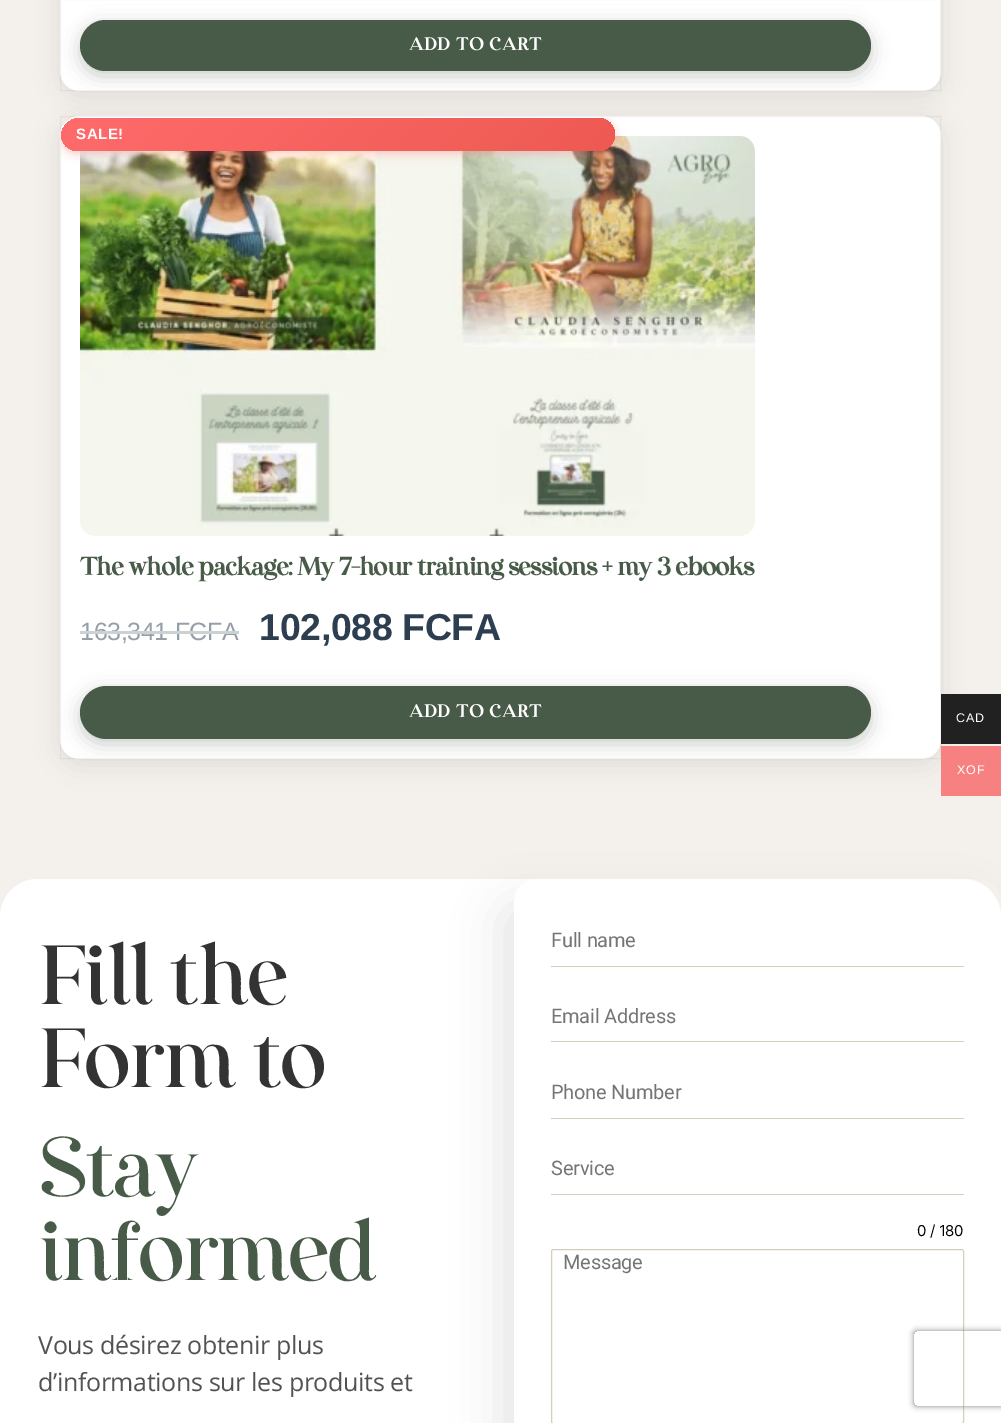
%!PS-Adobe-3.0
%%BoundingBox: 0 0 1001 1423
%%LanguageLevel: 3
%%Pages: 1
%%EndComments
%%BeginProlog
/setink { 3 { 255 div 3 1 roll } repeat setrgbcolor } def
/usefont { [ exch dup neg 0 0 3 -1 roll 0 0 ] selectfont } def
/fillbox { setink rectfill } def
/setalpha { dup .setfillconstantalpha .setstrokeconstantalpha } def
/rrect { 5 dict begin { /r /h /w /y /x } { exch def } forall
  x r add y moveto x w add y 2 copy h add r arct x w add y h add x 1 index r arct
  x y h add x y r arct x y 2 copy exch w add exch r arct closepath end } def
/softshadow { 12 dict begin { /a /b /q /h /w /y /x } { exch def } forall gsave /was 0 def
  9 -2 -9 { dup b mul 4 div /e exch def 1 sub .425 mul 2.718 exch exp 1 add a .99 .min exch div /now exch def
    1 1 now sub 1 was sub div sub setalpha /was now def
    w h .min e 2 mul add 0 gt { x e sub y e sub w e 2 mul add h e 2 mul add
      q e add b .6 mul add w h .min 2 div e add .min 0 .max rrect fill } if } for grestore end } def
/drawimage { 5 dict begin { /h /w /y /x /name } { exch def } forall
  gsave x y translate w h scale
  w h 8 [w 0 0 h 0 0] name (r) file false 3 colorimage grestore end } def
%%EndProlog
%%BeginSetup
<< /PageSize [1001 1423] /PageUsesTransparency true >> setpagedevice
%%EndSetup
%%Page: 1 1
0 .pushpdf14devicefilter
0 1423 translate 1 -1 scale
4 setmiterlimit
0 0 1001 1423 244 241 236 fillbox
0 0 0 setink
60 -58 881 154 20 12.5 0.08 softshadow
255 255 255 setink
60 -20 881 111 20 rrect fill
0.05 setalpha
0 0 0 setink
60.5 -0.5 880 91 rectstroke
gsave
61 -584 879 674 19 rrect clip newpath
1 setalpha
72 91 72 setink
80 25 791 51 25.5 9.5 0.3 softshadow
grestore
1 setalpha
72 91 72 setink
80 20 791 51 25.5 rrect fill
/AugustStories-Bold 17.5 usefont
255 255 255 setink
409 50 moveto 0.6 0 (ADD TO CART) ashow
0 0 0 setink
60 121 881 643 20 12.5 0.08 softshadow
255 255 255 setink
60 116 881 643 20 rrect fill
0.05 setalpha
0 0 0 setink
60.5 116.5 880 642 rectstroke
1 setalpha
(assets/img1.rgb) 80 136 675 400 drawimage
gsave
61 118 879 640 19 rrect clip newpath
238 90 82 setink
61 120 554 34 17 5 0.3 softshadow
grestore
gsave 80 118 moveto 598.5 118 lineto 607.5 118 615 125.5 615 134.5 curveto 615 143.5 607.5 151 598.5 151 curveto 77.5 151 lineto 68.5 151 61 143.5 61 134.5 curveto 61 137 lineto 61 126.5 69.5 118 80 118 curveto closepath clip newpath
<< /ShadingType 2 /ColorSpace /DeviceRGB /Coords [191 -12 485 281] /Extend [true true] /Function << /FunctionType 2 /Domain [0 1] /C0 [1 0.42 0.42] /C1 [0.933 0.353 0.322] /N 1 >> >> shfill grestore
/LiberationSans-Bold 15 usefont
255 255 255 setink
76 139 moveto 0.6 0 (SALE!) ashow
/AugustStories-Bold 25 usefont
72 91 72 setink
80 575 moveto -1.05 0 (The whole package: My 7-hour training sessions + my 3 ebooks) ashow
/LiberationSans-Regular 25 usefont
150 159 168 setink
80 640 moveto -0.35 0 (163,341 FCFA) ashow
80 631 159 3 202 210 211 fillbox
/LiberationSans-Bold 37.5 usefont
44 62 80 setink
259 640 moveto -0.35 0 (102,088 FCFA) ashow
gsave
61 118 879 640 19 rrect clip newpath
72 91 72 setink
80 691 791 53 26.5 9.5 0.3 softshadow
grestore
72 91 72 setink
80 686 791 53 26.5 rrect fill
/AugustStories-Bold 17.5 usefont
255 255 255 setink
409 717 moveto 0.6 0 (ADD TO CART) ashow
38 879 moveto 963 879 lineto 984 879 1001 896 1001 917 curveto 1001 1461 lineto 0 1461 lineto 0 917 lineto 0 896 17 879 38 879 curveto closepath fill
/AugustStories-Regular 83.75 usefont
51 51 51 setink
38 1004 moveto -3.5 0 (Fill the) ashow
38 1087 moveto -3.5 0 (Form to) ashow
72 91 72 setink
38 1196 moveto -3.5 0 (Stay) ashow
38 1280 moveto -3.5 0 (informed) ashow
/OpenSans-Regular 25 usefont
82 82 82 setink
38 1354 moveto -0.35 0 (Vous désirez obtenir plus) ashow
38 1391 moveto -0.35 0 (d’informations sur les produits et) ashow
gsave
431 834 moveto 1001 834 lineto 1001 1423 lineto 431 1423 lineto closepath 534 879 moveto 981 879 lineto 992 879 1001 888 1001 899 curveto 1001 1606 lineto 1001 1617 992 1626 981 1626 curveto 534 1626 lineto 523 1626 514 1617 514 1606 curveto 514 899 lineto 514 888 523 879 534 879 curveto closepath eoclip newpath
0 0 0 setink
498 901 487 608 20 22 0.09 softshadow
grestore
551 966 413 1 213 206 189 fillbox
/Roboto-Regular 20 usefont
117 117 117 setink
551 947 moveto -0.25 0 (Full name) ashow
551 1041 413 1 213 206 189 fillbox
117 117 117 setink
551 1023 moveto -0.25 0 (Email Address) ashow
551 1118 413 1 213 206 189 fillbox
117 117 117 setink
551 1099 moveto -0.25 0 (Phone Number) ashow
551 1194 413 1 213 206 189 fillbox
117 117 117 setink
551 1175 moveto -0.25 0 (Service) ashow
/Inter-Regular 15 usefont
0 0 0 setink
917 1236 moveto -0.35 0 (0 / 180) ashow
213 206 189 setink
551.5 1249.5 412 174 2 rrect stroke
/Roboto-Regular 20 usefont
117 117 117 setink
563 1269 moveto -0.25 0 (Message) ashow
gsave
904 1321 moveto 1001 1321 lineto 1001 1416 lineto 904 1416 lineto closepath 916.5 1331 moveto 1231.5 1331 lineto 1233 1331 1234 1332 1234 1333.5 curveto 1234 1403.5 lineto 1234 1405 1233 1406 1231.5 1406 curveto 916.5 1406 lineto 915 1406 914 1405 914 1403.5 curveto 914 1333.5 lineto 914 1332 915 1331 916.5 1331 curveto closepath eoclip newpath
128 128 128 setink
914 1331 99 75 2.5 3 1 softshadow
grestore
941 694 60 50 33 33 33 fillbox
/LiberationSans-Regular 12.5 usefont
255 255 255 setink
956 722 moveto 1 0 (CAD) ashow
941 746 60 50 247 128 128 fillbox
255 255 255 setink
957 774 moveto 1 0 (XOF) ashow
.poppdf14devicefilter showpage
%%EOF
